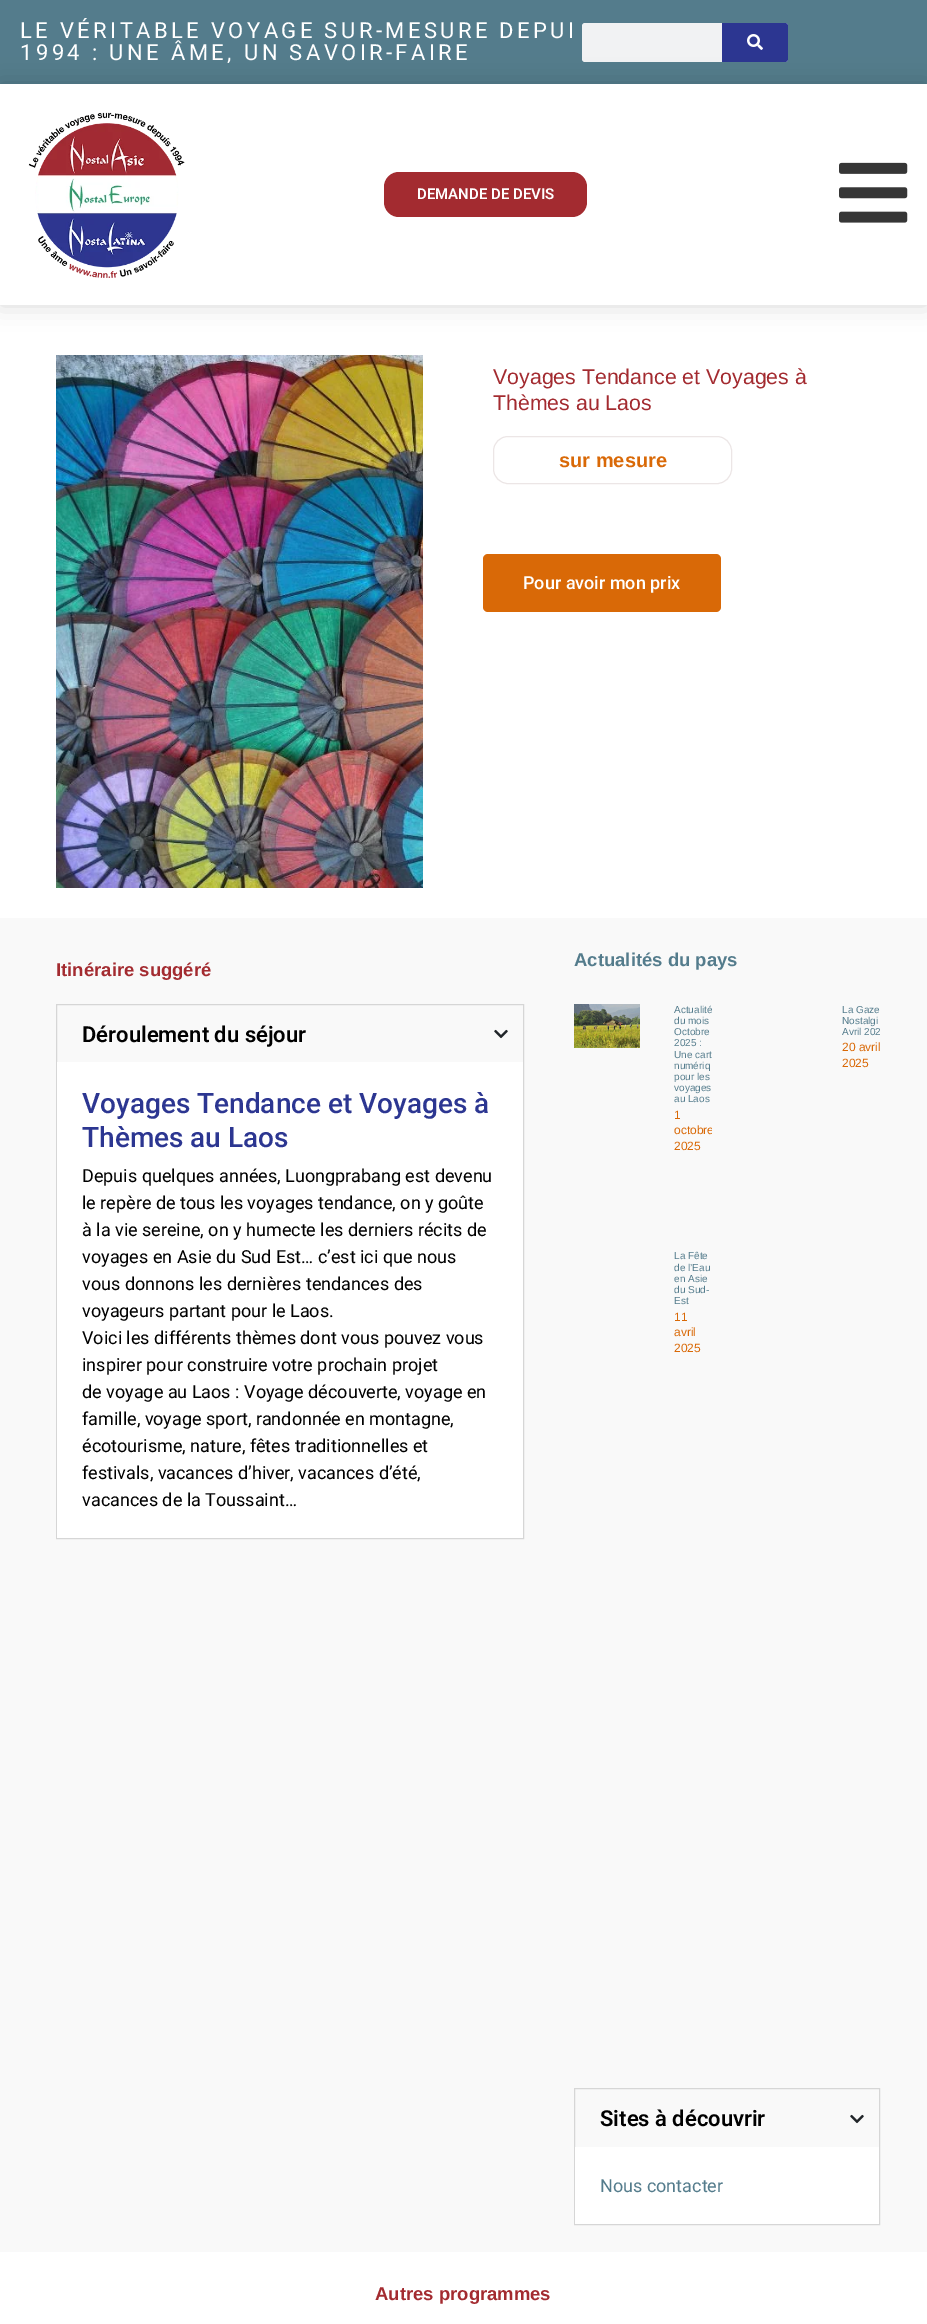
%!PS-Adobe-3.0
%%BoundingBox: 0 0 927 2324
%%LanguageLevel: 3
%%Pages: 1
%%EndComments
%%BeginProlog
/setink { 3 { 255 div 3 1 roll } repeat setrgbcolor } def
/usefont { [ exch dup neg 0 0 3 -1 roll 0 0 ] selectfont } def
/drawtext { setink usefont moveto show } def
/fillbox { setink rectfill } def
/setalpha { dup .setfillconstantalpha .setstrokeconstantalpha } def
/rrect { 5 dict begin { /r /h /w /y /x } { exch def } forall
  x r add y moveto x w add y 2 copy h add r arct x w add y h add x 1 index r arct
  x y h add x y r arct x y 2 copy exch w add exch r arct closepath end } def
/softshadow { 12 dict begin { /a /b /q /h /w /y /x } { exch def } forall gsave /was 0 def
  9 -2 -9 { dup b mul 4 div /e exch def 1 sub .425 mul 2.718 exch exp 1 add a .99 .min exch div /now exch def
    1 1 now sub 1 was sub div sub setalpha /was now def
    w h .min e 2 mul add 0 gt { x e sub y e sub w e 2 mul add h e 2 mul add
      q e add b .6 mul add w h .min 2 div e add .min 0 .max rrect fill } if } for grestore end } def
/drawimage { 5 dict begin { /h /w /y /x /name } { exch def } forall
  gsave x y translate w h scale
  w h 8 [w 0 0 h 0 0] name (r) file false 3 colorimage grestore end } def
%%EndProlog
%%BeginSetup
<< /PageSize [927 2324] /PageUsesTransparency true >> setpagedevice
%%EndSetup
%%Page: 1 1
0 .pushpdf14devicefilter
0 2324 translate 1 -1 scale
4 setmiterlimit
0 0 927 2324 255 255 255 fillbox
0 0 927 84 84 124 140 fillbox
/Roboto-Regular 22 usefont
255 255 255 setink
20 38 moveto 3.4 0 (LE VÉRITABLE VOYAGE SUR-MESURE DEPUI) ashow
20 60 moveto 3.4 0 (1994 : UNE ÂME, UN SAVOIR-FAIRE) ashow
241 242 243 setink
582 23 206 39 3 rrect fill
44 54 145 setink
722 23 moveto 785 23 lineto 786.5 23 788 24.5 788 26 curveto 788 59 lineto 788 60.5 786.5 62 785 62 curveto 722 62 lineto closepath fill
(assets/img1.rgb) 747 34 16 16 drawimage
0 0 0 setink
0 84 927 221 0 12 0.15 softshadow
0 84 927 221 255 255 255 fillbox
(assets/img2.rgb) 28 112 157 166 drawimage
163 43 48 setink
384 172 203 45 15 rrect fill
(DEMANDE DE DEVIS) 417 199 /Roboto-SemiBold 15 255 255 255 drawtext
(assets/img3.rgb) 839 162 69 61 drawimage
(assets/img4.rgb) 56 355 367 533 drawimage
(Voyages Tendance et Voyages à) 493 384 /LiberationSans-Regular 21.3 163 43 48 drawtext
(Thèmes au Laos) 493 410 /LiberationSans-Regular 21.3 163 43 48 drawtext
236 230 230 setink
493.5 436.5 238 47 14.5 rrect stroke
(sur mesure) 559 467 /LiberationSans-Bold 20 217 105 7 drawtext
483 554 238 58 5 rrect fill
(Pour avoir mon prix) 523 589 /Roboto-Medium 18 255 255 255 drawtext
0 918 927 1334 249 249 249 fillbox
(Itinéraire suggéré) 56 976 /LiberationSans-Bold 18.5 163 43 48 drawtext
214 214 214 setink
56.5 1004.5 467 534 rectstroke
(Déroulement du séjour) 82 1042 /Roboto-SemiBold 22 0 0 0 drawtext
(assets/img5.rgb) 494 1029 14 10 drawimage
57 1062 466 476 255 255 255 fillbox
(Voyages Tendance et Voyages à) 82 1113 /Roboto-Medium 28 44 54 145 drawtext
(Thèmes au Laos) 82 1147 /Roboto-Medium 28 44 54 145 drawtext
(Depuis quelques années, Luongprabang est devenu) 82 1182 /Roboto-Regular 18 0 0 0 drawtext
(le repère de tous les voyages tendance, on y goûte) 82 1209 /Roboto-Regular 18 0 0 0 drawtext
(à la vie sereine, on y humecte les derniers récits de) 82 1236 /Roboto-Regular 18 0 0 0 drawtext
(voyages en Asie du Sud Est… c’est ici que nous) 82 1263 /Roboto-Regular 18 0 0 0 drawtext
(vous donnons les dernières tendances des) 82 1290 /Roboto-Regular 18 0 0 0 drawtext
(voyageurs partant pour le Laos.) 82 1317 /Roboto-Regular 18 0 0 0 drawtext
(Voici les différents thèmes dont vous pouvez vous) 82 1344 /Roboto-Regular 18 0 0 0 drawtext
(inspirer pour construire votre prochain projet) 82 1371 /Roboto-Regular 18 0 0 0 drawtext
(de voyage au Laos : Voyage découverte, voyage en) 82 1398 /Roboto-Regular 18 0 0 0 drawtext
(famille, voyage sport, randonnée en montagne,) 82 1425 /Roboto-Regular 18 0 0 0 drawtext
(écotourisme, nature, fêtes traditionnelles et) 82 1452 /Roboto-Regular 18 0 0 0 drawtext
(festivals, vacances d’hiver, vacances d’été,) 82 1479 /Roboto-Regular 18 0 0 0 drawtext
(vacances de la Toussaint…) 82 1506 /Roboto-Regular 18 0 0 0 drawtext
(Actualités du pays) 574 966 /LiberationSans-Bold 18.5 84 124 140 drawtext
(assets/img6.rgb) 574 1004 66 44 drawimage
gsave
574 1004 138 203 rectclip
(Actualité) 674 1013 /LiberationSans-Regular 10 84 124 140 drawtext
grestore
(du mois) 674 1024 /LiberationSans-Regular 10 84 124 140 drawtext
(Octobre) 674 1035 /LiberationSans-Regular 10 84 124 140 drawtext
(2025 :) 674 1046 /LiberationSans-Regular 10 84 124 140 drawtext
gsave
574 1004 138 203 rectclip
(Une cart) 674 1058 /LiberationSans-Regular 10 84 124 140 drawtext
grestore
(numériq) 674 1069 /LiberationSans-Regular 10 84 124 140 drawtext
(pour les) 674 1080 /LiberationSans-Regular 10 84 124 140 drawtext
(voyages) 674 1091 /LiberationSans-Regular 10 84 124 140 drawtext
(au Laos) 674 1102 /LiberationSans-Regular 10 84 124 140 drawtext
(1) 674 1119 /LiberationSans-Regular 12 217 105 7 drawtext
gsave
574 1004 138 203 rectclip
(octobre) 674 1134 /LiberationSans-Regular 12 217 105 7 drawtext
grestore
(2025) 674 1150 /LiberationSans-Regular 12 217 105 7 drawtext
(La Gaze) 842 1013 /LiberationSans-Regular 10 84 124 140 drawtext
(Nostalgi) 842 1024 /LiberationSans-Regular 10 84 124 140 drawtext
gsave
742 1004 138 203 rectclip
(Avril 202) 842 1035 /LiberationSans-Regular 10 84 124 140 drawtext
(20 avril) 842 1051 /LiberationSans-Regular 12 217 105 7 drawtext
grestore
(2025) 842 1067 /LiberationSans-Regular 12 217 105 7 drawtext
(La Fête) 674 1259 /LiberationSans-Regular 10 84 124 140 drawtext
(de l’Eau) 674 1271 /LiberationSans-Regular 10 84 124 140 drawtext
(en Asie) 674 1282 /LiberationSans-Regular 10 84 124 140 drawtext
(du Sud-) 674 1293 /LiberationSans-Regular 10 84 124 140 drawtext
(Est) 674 1304 /LiberationSans-Regular 10 84 124 140 drawtext
(11) 674 1321 /LiberationSans-Regular 12 217 105 7 drawtext
(avril) 674 1336 /LiberationSans-Regular 12 217 105 7 drawtext
(2025) 674 1352 /LiberationSans-Regular 12 217 105 7 drawtext
214 214 214 setink
574.5 2088.5 305 136 rectstroke
(Sites à découvrir) 600 2126 /Roboto-SemiBold 22 0 0 0 drawtext
(assets/img5.rgb) 850 2114 14 10 drawimage
575 2147 304 77 255 255 255 fillbox
(Nous contacter) 600 2192 /Roboto-Regular 18 84 124 140 drawtext
(Autres programmes) 375 2300 /LiberationSans-Bold 18.5 163 43 48 drawtext
.poppdf14devicefilter showpage
%%EOF
